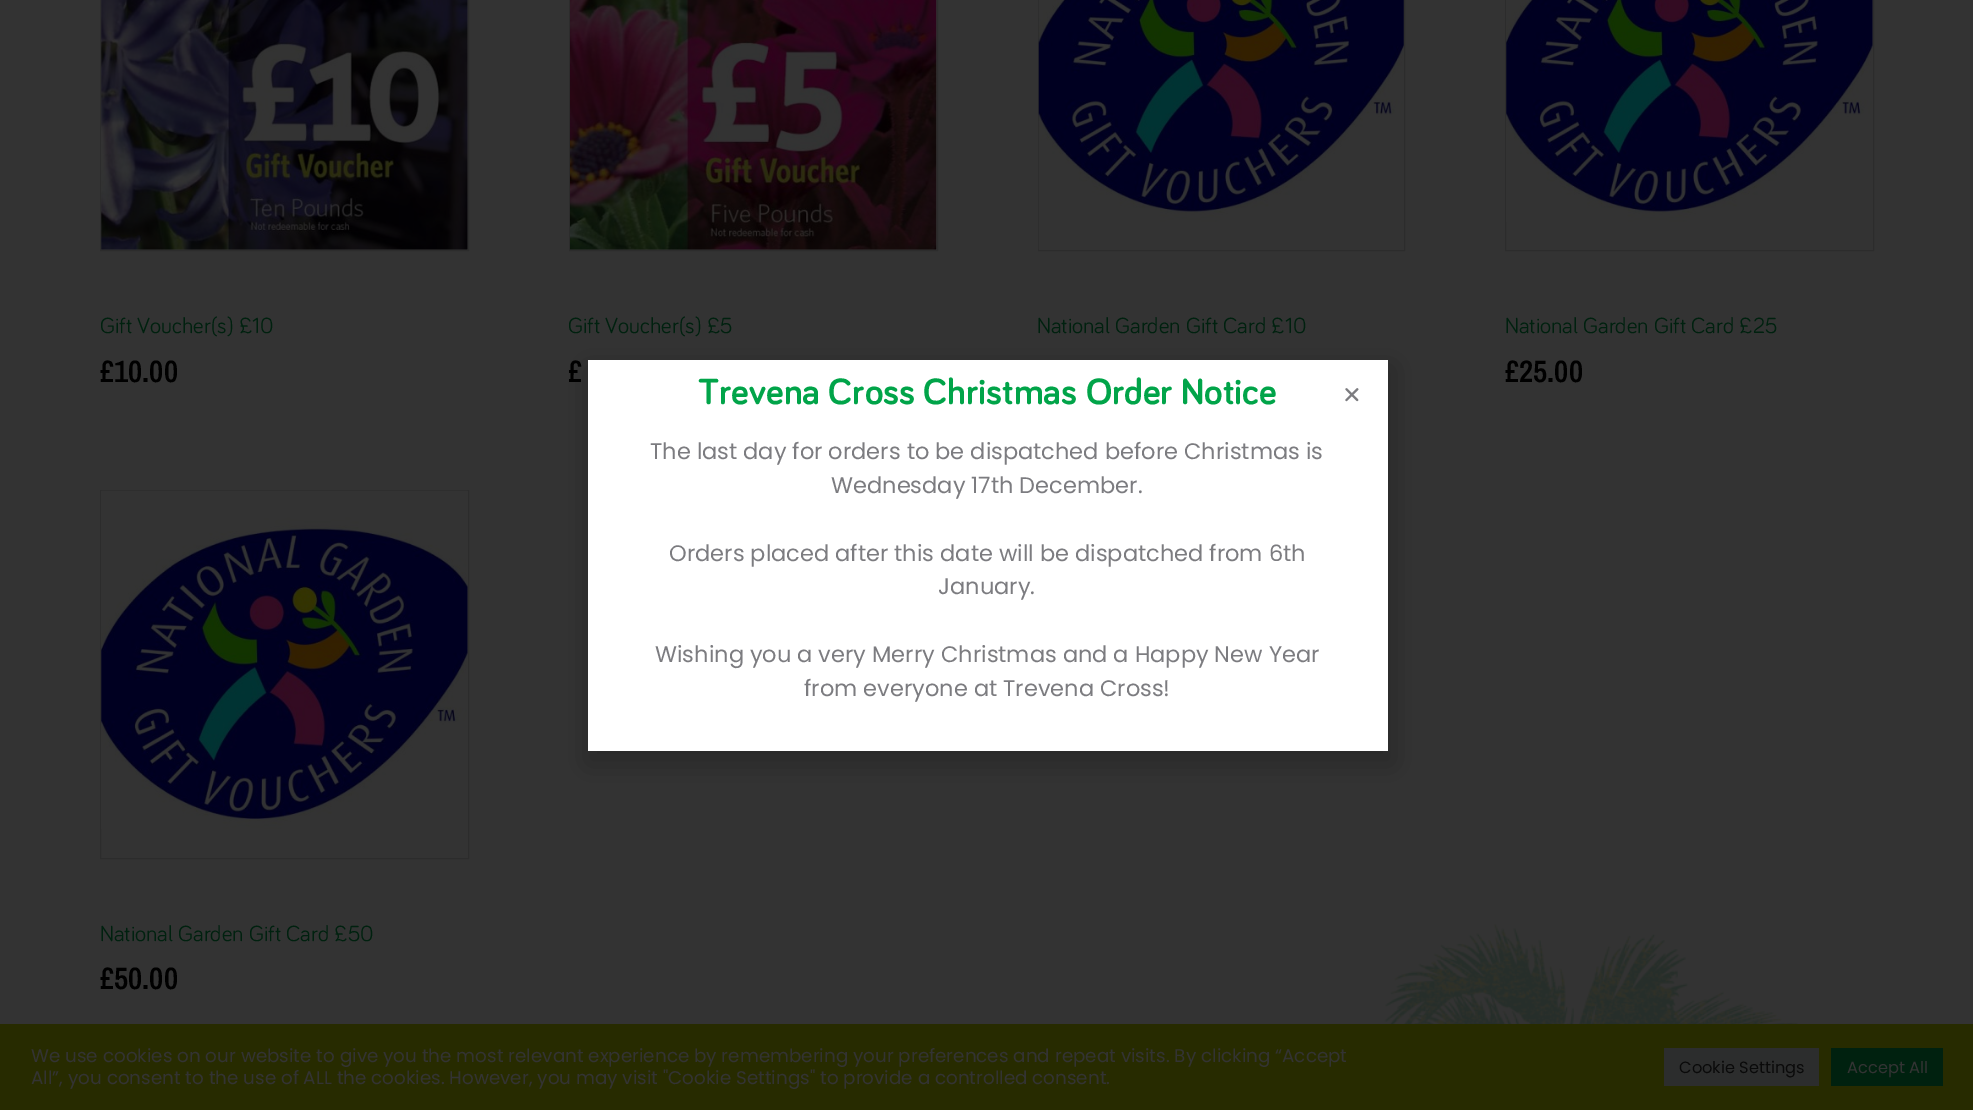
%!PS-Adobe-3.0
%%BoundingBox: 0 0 1973 1110
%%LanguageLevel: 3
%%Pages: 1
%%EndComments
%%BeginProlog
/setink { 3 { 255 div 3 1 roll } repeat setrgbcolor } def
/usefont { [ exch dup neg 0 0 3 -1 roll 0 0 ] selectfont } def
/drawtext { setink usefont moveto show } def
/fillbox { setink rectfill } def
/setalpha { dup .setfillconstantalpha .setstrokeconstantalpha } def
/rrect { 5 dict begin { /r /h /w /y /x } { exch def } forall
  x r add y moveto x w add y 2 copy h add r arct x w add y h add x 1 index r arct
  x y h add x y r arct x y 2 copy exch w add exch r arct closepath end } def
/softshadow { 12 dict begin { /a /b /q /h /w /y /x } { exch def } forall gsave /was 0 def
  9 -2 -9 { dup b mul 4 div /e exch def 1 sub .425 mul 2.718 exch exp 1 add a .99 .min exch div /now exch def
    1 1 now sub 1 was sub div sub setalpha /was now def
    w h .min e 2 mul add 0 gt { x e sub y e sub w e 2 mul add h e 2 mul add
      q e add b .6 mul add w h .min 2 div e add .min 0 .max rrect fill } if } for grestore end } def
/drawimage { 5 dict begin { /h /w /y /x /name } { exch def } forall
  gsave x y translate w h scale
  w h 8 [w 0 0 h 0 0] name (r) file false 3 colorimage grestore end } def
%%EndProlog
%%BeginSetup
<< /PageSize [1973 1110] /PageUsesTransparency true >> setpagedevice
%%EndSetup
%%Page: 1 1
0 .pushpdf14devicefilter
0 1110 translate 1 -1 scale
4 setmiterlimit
0 0 1973 1110 51 51 51 fillbox
(assets/img1.rgb) 1335 924 518 100 drawimage
44 44 44 setink
100.5 -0.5 368 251 rectstroke
(assets/img2.rgb) 101 0 367 250 drawimage
(Gift Voucher\(s\) £10) 100 333 /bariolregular-Regular 22.5 0 33 15 drawtext
(£10.00) 100 382 /ArchivoNarrow-SemiBold 31 0 0 0 drawtext
44 44 44 setink
569.5 -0.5 368 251 rectstroke
(assets/img3.rgb) 570 0 367 250 drawimage
(Gift Voucher\(s\) £5) 568 333 /bariolregular-Regular 22.5 0 33 15 drawtext
gsave
569 353 369 37 rectclip
(£) 568 382 /ArchivoNarrow-SemiBold 31 0 0 0 drawtext
grestore
44 44 44 setink
1038.5 -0.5 366 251 rectstroke
(assets/img4.rgb) 1038 0 366 250 drawimage
(National Garden Gift Card £10) 1037 333 /bariolregular-Regular 22.5 0 33 15 drawtext
44 44 44 setink
1505.5 -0.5 368 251 rectstroke
(assets/img5.rgb) 1506 0 367 222 drawimage
(National Garden Gift Card £25) 1505 333 /bariolregular-Regular 22.5 0 33 15 drawtext
(£25.00) 1505 382 /ArchivoNarrow-SemiBold 31 0 0 0 drawtext
44 44 44 setink
100.5 490.5 368 368 rectstroke
(assets/img6.rgb) 101 490 367 339 drawimage
(National Garden Gift Card £50) 100 941 /bariolregular-Regular 22.5 0 33 15 drawtext
(£50.00) 100 989 /ArchivoNarrow-SemiBold 31 0 0 0 drawtext
586 366 808 399 0 14.5 0.2 softshadow
588 360 800 391 255 255 255 fillbox
(Trevena Cross Christmas Order Notice) 698 404 /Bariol-Bold 37.5 1 164 73 drawtext
(The last day for orders to be dispatched before Christmas is) 650 459 /Poppins-Regular 22.5 124 124 128 drawtext
(Wednesday 17th December.) 831 493 /Poppins-Regular 22.5 124 124 128 drawtext
(Orders placed after this date will be dispatched from 6th) 669 561 /Poppins-Regular 22.5 124 124 128 drawtext
(January.) 938 594 /Poppins-Regular 22.5 124 124 128 drawtext
(Wishing you a very Merry Christmas and a Happy New Year) 655 662 /Poppins-Regular 22.5 124 124 128 drawtext
(from everyone at Trevena Cross!) 804 696 /Poppins-Regular 22.5 124 124 128 drawtext
(assets/img7.rgb) 1345 388 14 14 drawimage
0 1024 1973 86 39 43 0 fillbox
(We use cookies on our website to give you the most relevant experience by remembering your preferences and repeat visits. By clicking “Accept) 31 1062 /Poppins-Regular 18.33 51 51 51 drawtext
(All”, you consent to the use of ALL the cookies. However, you may visit "Cookie Settings" to provide a controlled consent.) 31 1084 /Poppins-Regular 18.33 51 51 51 drawtext
1664 1048 155 38 44 45 45 fillbox
(Cookie Settings) 1679 1073 /Poppins-Regular 16.25 10 10 10 drawtext
1831 1048 112 38 0 33 15 fillbox
(Accept All) 1847 1073 /Poppins-Regular 16.25 51 51 51 drawtext
.poppdf14devicefilter showpage
%%EOF
